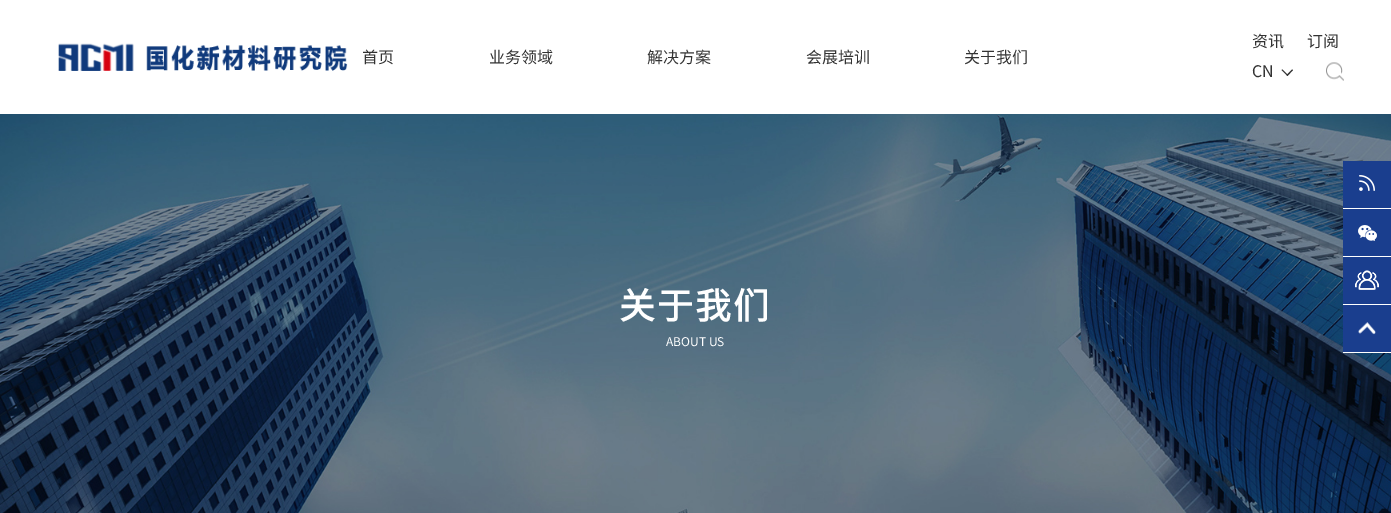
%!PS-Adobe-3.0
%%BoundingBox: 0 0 1391 513
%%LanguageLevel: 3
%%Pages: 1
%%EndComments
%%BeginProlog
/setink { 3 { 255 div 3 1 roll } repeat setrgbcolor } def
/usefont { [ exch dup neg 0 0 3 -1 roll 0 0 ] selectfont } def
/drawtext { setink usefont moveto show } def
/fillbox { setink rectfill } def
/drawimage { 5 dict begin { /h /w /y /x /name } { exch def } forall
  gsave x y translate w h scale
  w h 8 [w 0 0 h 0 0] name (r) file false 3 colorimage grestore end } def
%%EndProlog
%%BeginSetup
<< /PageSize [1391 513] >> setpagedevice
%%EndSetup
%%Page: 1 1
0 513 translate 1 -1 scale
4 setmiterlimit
0 0 1391 513 255 255 255 fillbox
(assets/img1.rgb) 58 43 290 28 drawimage
(首页) 362 63 /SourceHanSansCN-Regular 16 51 51 51 drawtext
(业务领域) 489 63 /SourceHanSansCN-Regular 16 51 51 51 drawtext
(解决方案) 647 63 /SourceHanSansCN-Regular 16 51 51 51 drawtext
(会展培训) 806 63 /SourceHanSansCN-Regular 16 51 51 51 drawtext
(关于我们) 964 63 /SourceHanSansCN-Regular 16 51 51 51 drawtext
(资讯) 1252 47 /SourceHanSansCN-Regular 16 51 51 51 drawtext
(订阅) 1307 47 /SourceHanSansCN-Regular 16 51 51 51 drawtext
(CN) 1252 77 /SourceHanSansCN-Regular 16 51 51 51 drawtext
1287.5 76 moveto 1281.5 70 lineto 1282.5 69.5 lineto 1288 75 lineto closepath fill
1287.5 76 moveto 1286.5 75 lineto 1292 69.5 lineto 1293 70 lineto closepath fill
(assets/img2.rgb) 1326 62 18 19 drawimage
(assets/img3.rgb) 0 114 1391 399 drawimage
/SourceHanSansCN-Bold 36 usefont
255 255 255 setink
619 319 moveto 2 0 (关于我们) ashow
(ABOUT US) 666 346 /SourceHanSansCN-Regular 12 255 255 255 drawtext
1343 161 48 47 26 62 142 fillbox
(assets/img4.rgb) 1359 175 16 16 drawimage
1343 208 48 1 255 255 255 fillbox
1343 209 48 47 26 62 142 fillbox
(assets/img5.rgb) 1358 225 19 16 drawimage
1343 256 48 1 255 255 255 fillbox
1343 257 48 47 26 62 142 fillbox
(assets/img6.rgb) 1355 270 24 20 drawimage
1343 304 48 1 255 255 255 fillbox
1343 305 48 47 26 62 142 fillbox
(assets/img7.rgb) 1358 322 18 13 drawimage
1343 352 48 1 255 255 255 fillbox
showpage
%%EOF
